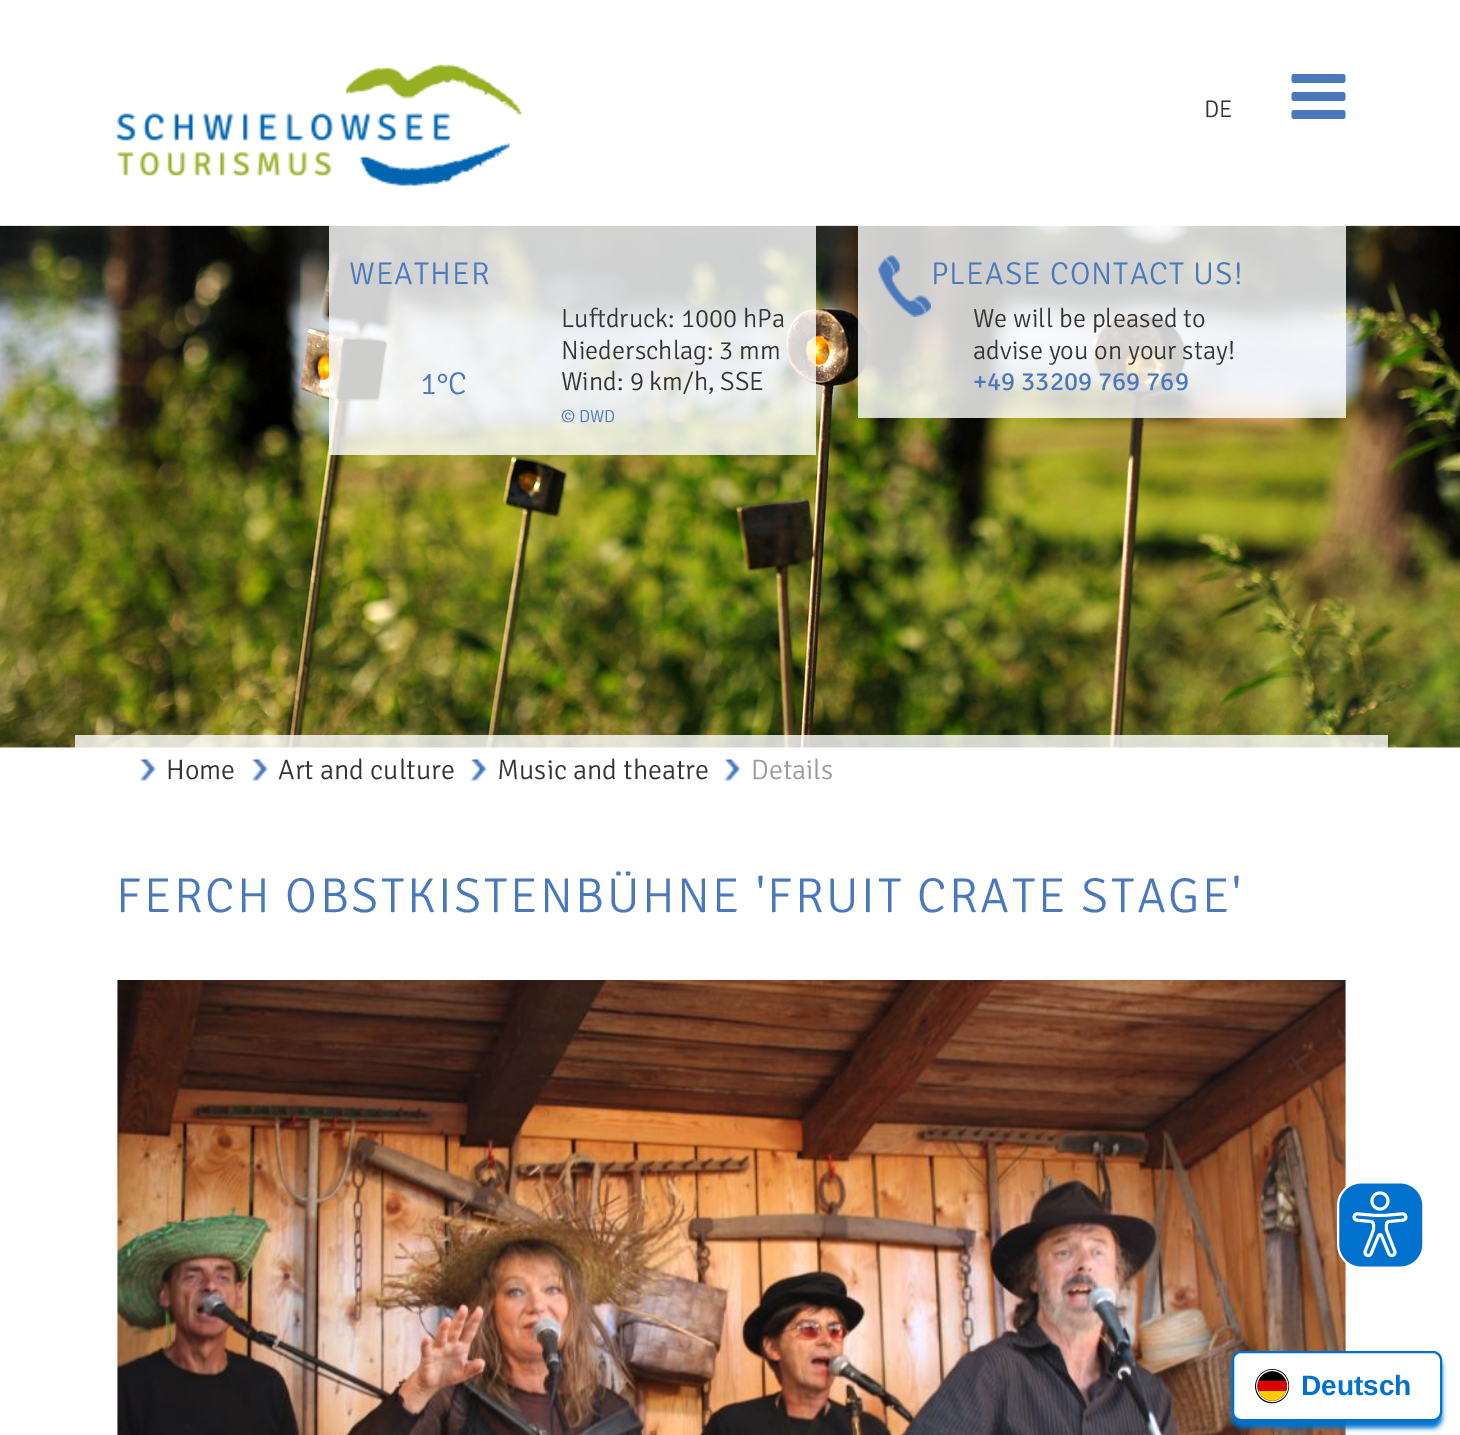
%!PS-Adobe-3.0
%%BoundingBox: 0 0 1460 1435
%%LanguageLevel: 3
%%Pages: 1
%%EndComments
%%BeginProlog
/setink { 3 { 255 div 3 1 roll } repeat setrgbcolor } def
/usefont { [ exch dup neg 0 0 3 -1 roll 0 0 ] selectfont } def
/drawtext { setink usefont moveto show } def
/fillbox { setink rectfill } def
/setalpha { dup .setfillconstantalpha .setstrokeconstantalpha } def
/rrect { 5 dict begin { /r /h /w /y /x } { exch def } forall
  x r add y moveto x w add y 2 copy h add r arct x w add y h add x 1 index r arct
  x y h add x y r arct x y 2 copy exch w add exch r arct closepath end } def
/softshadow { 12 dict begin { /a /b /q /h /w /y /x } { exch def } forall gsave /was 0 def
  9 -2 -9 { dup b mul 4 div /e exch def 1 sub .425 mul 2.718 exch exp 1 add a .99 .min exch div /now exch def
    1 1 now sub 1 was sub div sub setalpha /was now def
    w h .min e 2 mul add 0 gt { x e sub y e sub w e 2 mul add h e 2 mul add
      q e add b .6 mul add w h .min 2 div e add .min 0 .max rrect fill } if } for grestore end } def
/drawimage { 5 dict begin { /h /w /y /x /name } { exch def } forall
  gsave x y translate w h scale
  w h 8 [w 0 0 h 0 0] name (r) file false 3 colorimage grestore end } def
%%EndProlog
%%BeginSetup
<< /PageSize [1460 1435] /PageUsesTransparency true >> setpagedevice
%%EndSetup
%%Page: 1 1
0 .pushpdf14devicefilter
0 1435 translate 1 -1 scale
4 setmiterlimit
0 0 1460 1435 255 255 255 fillbox
(assets/img1.rgb) 117 64 405 122 drawimage
(DE) 1204 117 /SignikaNegative-Light 24 51 51 51 drawtext
(assets/img2.rgb) 1291 74 55 45 drawimage
(assets/img3.rgb) 0 225 1460 523 drawimage
(assets/img5.rgb) 0 225 1460 523 drawimage
0.8 setalpha
329 225 487 230 255 255 255 fillbox
/SignikaNegative-Light 31.5 usefont
1 setalpha
73 121 188 setink
349 284 moveto 1 0 (WEATHER) ashow
(1°C) 420 394 /SignikaNegative-Light 31.5 73 121 188 drawtext
(Luftdruck: 1000 hPa) 561 327 /SignikaNegative-Light 26.25 51 51 51 drawtext
(Niederschlag: 3 mm) 561 359 /SignikaNegative-Light 26.25 51 51 51 drawtext
(Wind: 9 km/h, SSE) 561 390 /SignikaNegative-Light 26.25 51 51 51 drawtext
(© DWD) 561 422 /SignikaNegative-Light 17.5 73 121 188 drawtext
0.8 setalpha
858 225 488 193 255 255 255 fillbox
1 setalpha
(assets/img4.rgb) 878 255 53 62 drawimage
/SignikaNegative-Light 31.5 usefont
73 121 188 setink
931 284 moveto 1 0 (PLEASE CONTACT US!) ashow
(We will be pleased to) 973 327 /SignikaNegative-Light 26.25 51 51 51 drawtext
(advise you on your stay!) 973 359 /SignikaNegative-Light 26.25 51 51 51 drawtext
(+49 33209 769 769) 973 390 /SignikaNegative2-Light 26.25 73 121 188 drawtext
0.8 setalpha
75 735 1313 13 255 255 255 fillbox
1 setalpha
(assets/img6.rgb) 139 759 18 22 drawimage
(Home) 166 779 /SignikaNegative-Light 28 51 51 51 drawtext
(assets/img6.rgb) 251 759 18 22 drawimage
(Art and culture) 278 779 /SignikaNegative-Light 28 51 51 51 drawtext
(assets/img7.rgb) 470 759 17 22 drawimage
(Music and theatre) 497 779 /SignikaNegative-Light 28 51 51 51 drawtext
(assets/img8.rgb) 724 759 17 22 drawimage
(Details) 751 779 /SignikaNegative-Light 28 153 153 153 drawtext
/SignikaNegative-Light 49 usefont
73 121 188 setink
116 912 moveto 2.45 0 (FERCH OBSTKISTENBÜHNE 'FRUIT CRATE STAGE') ashow
(assets/img9.rgb) 117 980 1229 455 drawimage
(assets/img10.rgb) 1337 1183 86 84 drawimage
0 114 206 setink
1232 1358 210 70 9 2.5 1 softshadow
255 255 255 setink
1233 1352 208 68 8 rrect gsave fill grestore
0 114 206 setink
2 setlinewidth
stroke
(assets/img11.rgb) 1255 1369 35 35 drawimage
(Deutsch) 1301 1395 /LiberationSans-Bold 28 0 114 206 drawtext
.poppdf14devicefilter showpage
%%EOF
